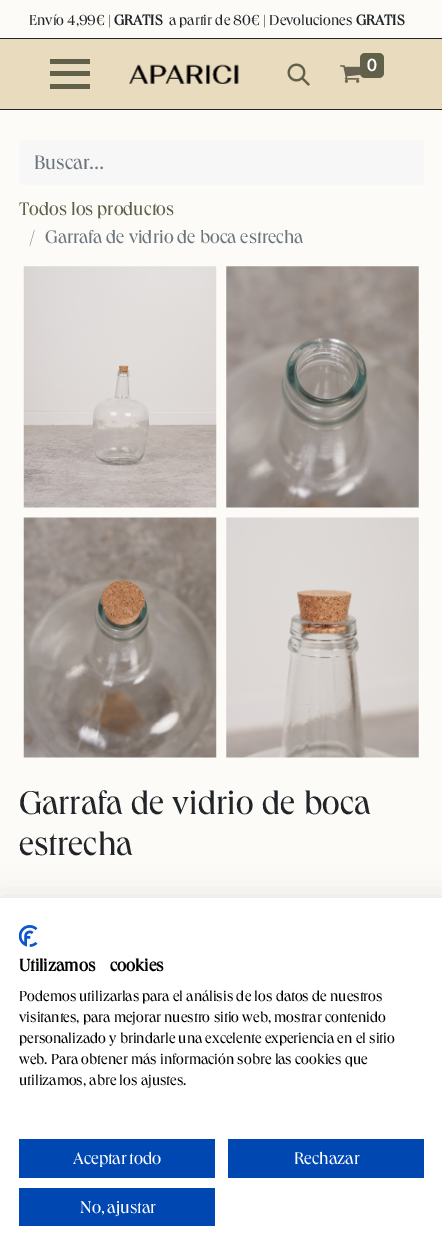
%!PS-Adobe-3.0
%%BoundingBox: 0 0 442 1260
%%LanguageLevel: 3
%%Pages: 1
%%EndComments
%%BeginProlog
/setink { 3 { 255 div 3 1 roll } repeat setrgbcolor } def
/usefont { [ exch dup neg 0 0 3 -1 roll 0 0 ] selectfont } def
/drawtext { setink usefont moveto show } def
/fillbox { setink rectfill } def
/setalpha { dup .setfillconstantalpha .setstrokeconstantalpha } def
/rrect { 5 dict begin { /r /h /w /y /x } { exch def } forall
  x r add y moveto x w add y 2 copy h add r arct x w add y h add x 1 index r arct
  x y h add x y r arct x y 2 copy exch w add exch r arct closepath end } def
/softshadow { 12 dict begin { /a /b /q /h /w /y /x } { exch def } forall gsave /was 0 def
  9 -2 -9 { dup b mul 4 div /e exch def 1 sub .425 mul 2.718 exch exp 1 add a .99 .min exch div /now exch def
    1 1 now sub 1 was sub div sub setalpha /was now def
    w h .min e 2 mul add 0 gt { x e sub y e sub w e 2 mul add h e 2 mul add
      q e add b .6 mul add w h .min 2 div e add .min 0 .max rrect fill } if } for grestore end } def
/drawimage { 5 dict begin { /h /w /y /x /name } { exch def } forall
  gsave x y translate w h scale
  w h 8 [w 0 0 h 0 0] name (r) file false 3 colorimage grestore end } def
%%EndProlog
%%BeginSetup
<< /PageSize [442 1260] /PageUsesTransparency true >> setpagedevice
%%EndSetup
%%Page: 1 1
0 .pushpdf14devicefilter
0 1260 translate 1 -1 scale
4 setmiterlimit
0 0 442 1260 252 251 247 fillbox
(Envío 4,99€ |) 29 25 /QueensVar-Regular 15 33 37 41 drawtext
(GRATIS) 114 25 /QueensVar-Bold 15 33 37 41 drawtext
(a partir de 80€ | Devoluciones) 169 25 /QueensVar-Regular 15 33 37 41 drawtext
(GRATIS) 356 25 /QueensVar-Bold 15 33 37 41 drawtext
0 39 442 70 233 219 190 fillbox
0 38 442 1 33 37 41 fillbox
0 109 442 1 33 37 41 fillbox
50 71 40 5 97 97 74 fillbox
50 59 40 5 97 97 74 fillbox
50 84 40 5 97 97 74 fillbox
(assets/img1.rgb) 129 64 110 20 drawimage
(assets/img2.rgb) 287 63 23 23 drawimage
(assets/img3.rgb) 340 65 21 18 drawimage
360 53 24 25 5 rrect fill
(0) 367 71 /Lato-Bold 17 255 255 255 drawtext
247 247 247 setink
24 140 moveto 424 140 lineto 424 185 lineto 24 185 lineto 21 185 19 183 19 180 curveto 19 145 lineto 19 142 21 140 24 140 curveto closepath fill
(Buscar…) 34 169 /QueensVar-Regular 20 108 117 125 drawtext
(Todos los productos) 19 215 /QueensVar-Regular 18.75 97 97 74 drawtext
(/) 29 243 /QueensVar-Regular 18.75 108 117 125 drawtext
(Garrafa de vidrio de boca estrecha) 45 243 /QueensVar-Regular 18.75 108 117 125 drawtext
(assets/img4.rgb) 23 266 194 242 drawimage
(assets/img5.rgb) 226 266 193 242 drawimage
(assets/img6.rgb) 23 517 194 241 drawimage
(assets/img7.rgb) 226 517 193 241 drawimage
/QueensVar-Regular 34 usefont
33 37 41 setink
19 814 moveto 1 0 32 (Garrafa de vidrio de boca) widthshow
(estrecha) 19 855 /QueensVar-Regular 34 33 37 41 drawtext
0 0 0 setink
0 898 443 362 0 15 0.1 softshadow
0 898 442 362 255 255 255 fillbox
(assets/img8.rgb) 19 925 19 22 drawimage
/QueensVar-Bold 17.5 usefont
0 0 0 setink
19 971 moveto 11 0 32 (Utilizamos cookies) widthshow
(Podemos utilizarlas para el análisis de los datos de nuestros) 19 1001 /QueensVar-Regular 15 0 0 0 drawtext
(visitantes, para mejorar nuestro sitio web, mostrar contenido) 19 1022 /QueensVar-Regular 15 0 0 0 drawtext
(personalizado y brindarle una excelente experiencia en el sitio) 19 1043 /QueensVar-Regular 15 0 0 0 drawtext
(web. Para obtener más información sobre las cookies que) 19 1064 /QueensVar-Regular 15 0 0 0 drawtext
(utilizamos, abre los ajustes.) 19 1085 /QueensVar-Regular 15 0 0 0 drawtext
19 1139 196 39 0 71 178 fillbox
/QueensVar-Regular 17.5 usefont
255 255 255 setink
73 1164 moveto -1 0 32 (Aceptar todo) widthshow
228 1139 196 39 0 71 178 fillbox
(Rechazar) 294 1164 /QueensVar-Regular 17.5 255 255 255 drawtext
19 1188 196 38 0 71 178 fillbox
255 255 255 setink
80 1213 moveto -1 0 32 (No, ajustar) widthshow
.poppdf14devicefilter showpage
%%EOF
